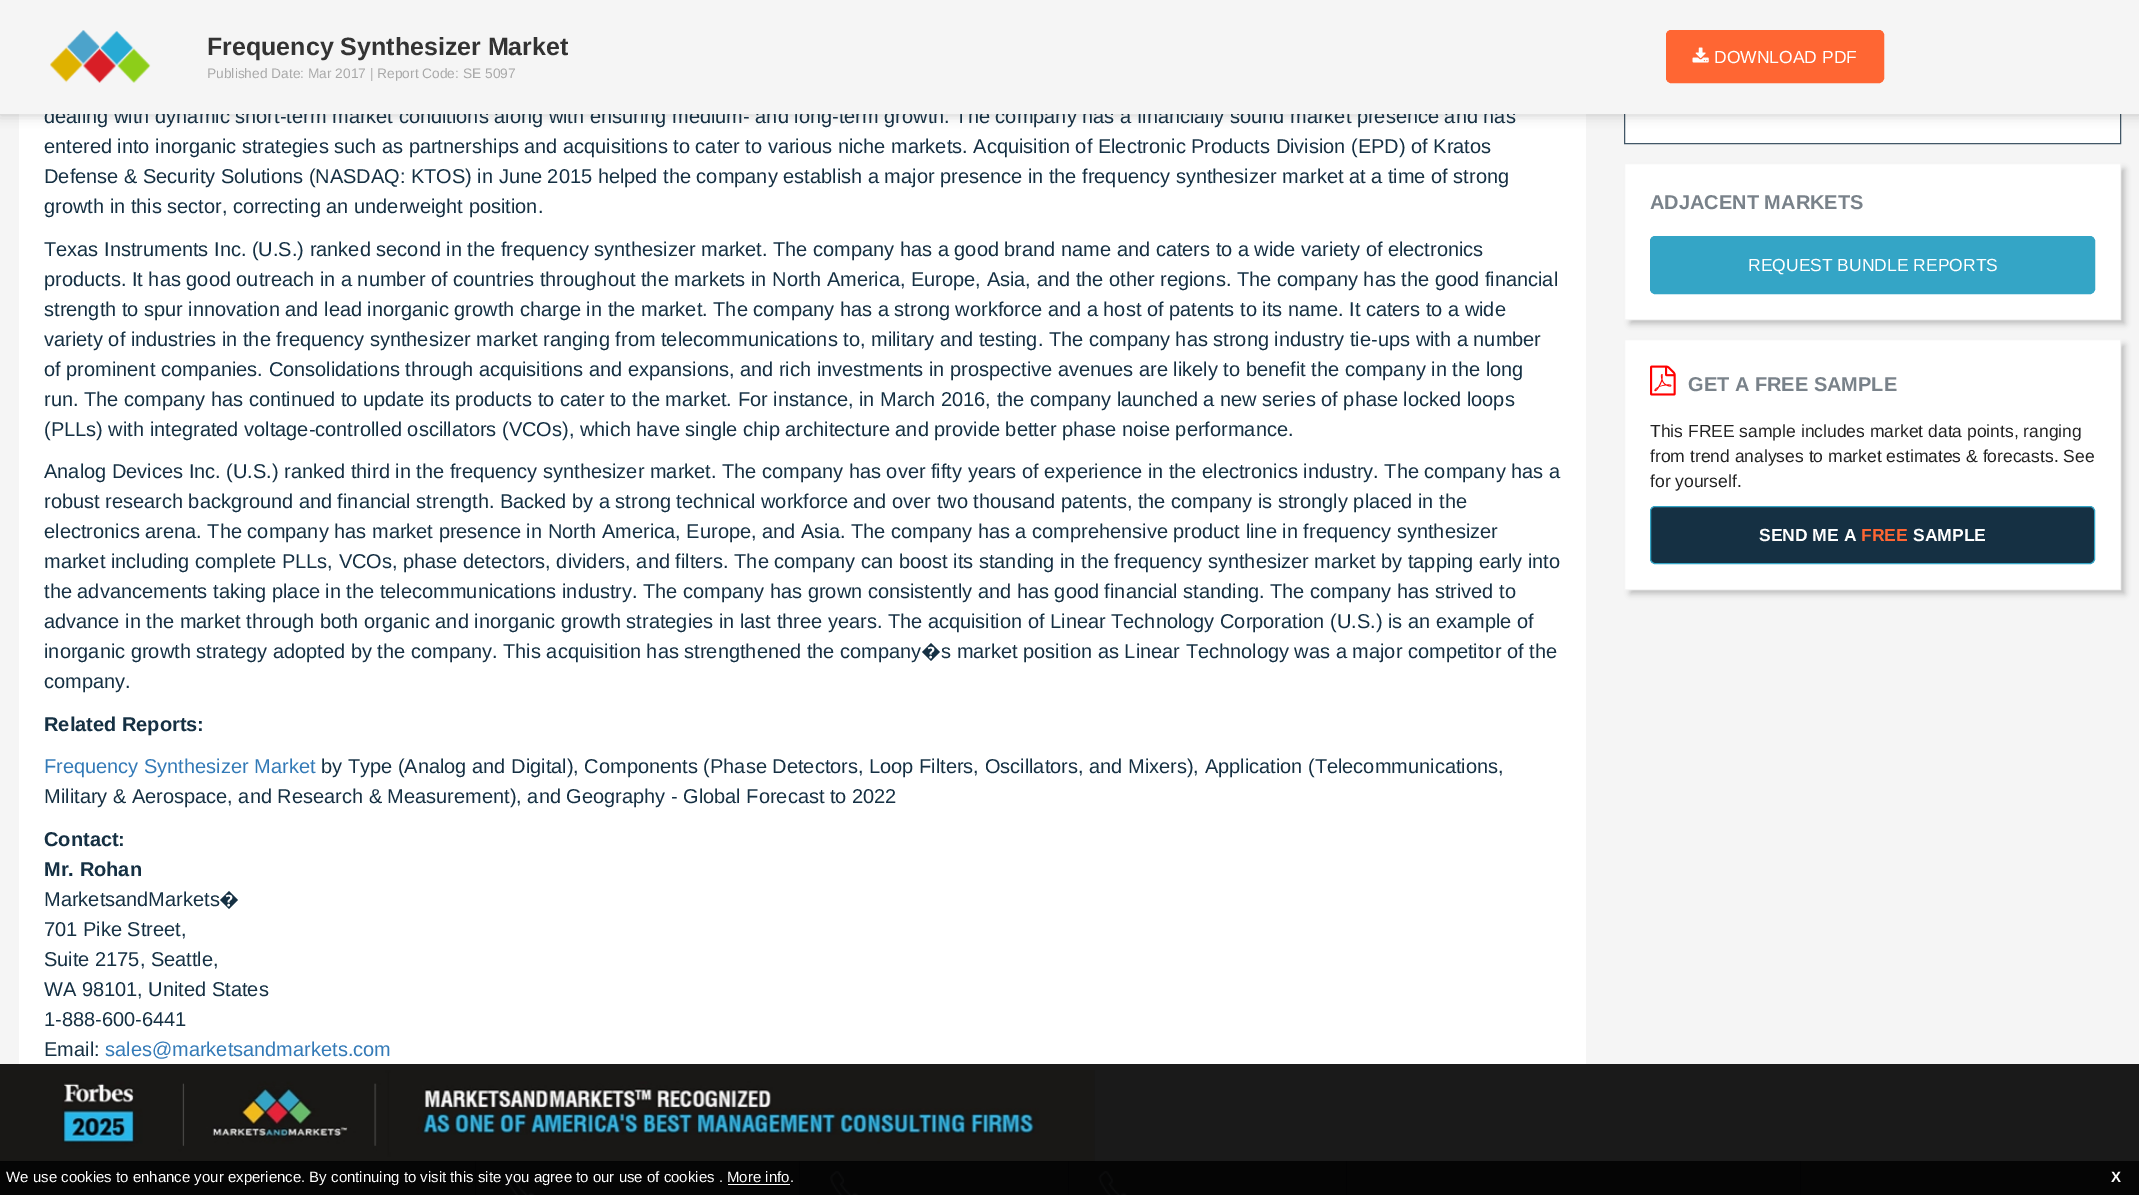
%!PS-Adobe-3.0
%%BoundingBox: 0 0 2139 1195
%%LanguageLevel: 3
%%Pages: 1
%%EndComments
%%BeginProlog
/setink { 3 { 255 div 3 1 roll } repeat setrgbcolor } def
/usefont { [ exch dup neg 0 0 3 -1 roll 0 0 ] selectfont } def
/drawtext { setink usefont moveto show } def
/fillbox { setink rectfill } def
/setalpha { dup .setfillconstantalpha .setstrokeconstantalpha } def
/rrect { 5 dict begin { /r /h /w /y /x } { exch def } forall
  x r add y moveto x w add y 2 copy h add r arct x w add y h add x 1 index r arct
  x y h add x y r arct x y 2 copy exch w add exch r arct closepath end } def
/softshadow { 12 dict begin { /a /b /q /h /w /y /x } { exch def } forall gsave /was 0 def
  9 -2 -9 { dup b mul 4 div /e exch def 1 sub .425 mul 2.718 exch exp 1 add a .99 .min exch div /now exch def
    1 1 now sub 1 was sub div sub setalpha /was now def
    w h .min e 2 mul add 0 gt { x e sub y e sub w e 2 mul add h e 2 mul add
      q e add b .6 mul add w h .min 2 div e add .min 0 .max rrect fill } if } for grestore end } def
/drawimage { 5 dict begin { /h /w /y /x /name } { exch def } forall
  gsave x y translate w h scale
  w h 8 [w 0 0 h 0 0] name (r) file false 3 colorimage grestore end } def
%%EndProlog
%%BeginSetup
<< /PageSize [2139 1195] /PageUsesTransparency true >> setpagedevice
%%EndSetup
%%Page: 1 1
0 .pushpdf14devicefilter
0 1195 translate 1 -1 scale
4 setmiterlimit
0 0 2139 1195 47 50 56 fillbox
0 114 2139 950 245 245 245 fillbox
19 114 1567 950 255 255 255 fillbox
1625 114 495 29 255 255 255 fillbox
66 87 103 setink
1624.5 -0.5 496 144 rectstroke
0 0 0 setink
0 3 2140 112 0 6 0.2 softshadow
(dealing with dynamic short-term market conditions along with ensuring medium- and long-term growth. The company has a financially sound market presence and has) 44 123 /LiberationSans-Regular 20 21 48 67 drawtext
0 0 2139 114 245 245 245 fillbox
(assets/img1.rgb) 50 30 101 53 drawimage
(Frequency Synthesizer Market) 207 55 /LiberationSans-Bold 25 51 51 51 drawtext
(Published Date: Mar 2017 | Report Code: SE 5097) 207 78 /LiberationSans-Regular 13.75 169 169 169 drawtext
255 102 51 setink
1666.5 30.5 217 52 4.5 rrect gsave fill grestore
stroke
(assets/img2.rgb) 1692 47 17 16 drawimage
(DOWNLOAD PDF) 1714 63 /LiberationSans-Regular 17.5 255 255 255 drawtext
(entered into inorganic strategies such as partnerships and acquisitions to cater to various niche markets. Acquisition of Electronic Products Division \(EPD\) of Kratos) 44 153 /LiberationSans-Regular 20 21 48 67 drawtext
(Defense & Security Solutions \(NASDAQ: KTOS\) in June 2015 helped the company establish a major presence in the frequency synthesizer market at a time of strong) 44 183 /LiberationSans-Regular 20 21 48 67 drawtext
(growth in this sector, correcting an underweight position.) 44 213 /LiberationSans-Regular 20 21 48 67 drawtext
(Texas Instruments Inc. \(U.S.\) ranked second in the frequency synthesizer market. The company has a good brand name and caters to a wide variety of electronics) 44 256 /LiberationSans-Regular 20 21 48 67 drawtext
(products. It has good outreach in a number of countries throughout the markets in North America, Europe, Asia, and the other regions. The company has the good financial) 44 286 /LiberationSans-Regular 20 21 48 67 drawtext
(strength to spur innovation and lead inorganic growth charge in the market. The company has a strong workforce and a host of patents to its name. It caters to a wide) 44 316 /LiberationSans-Regular 20 21 48 67 drawtext
(variety of industries in the frequency synthesizer market ranging from telecommunications to, military and testing. The company has strong industry tie-ups with a number) 44 346 /LiberationSans-Regular 20 21 48 67 drawtext
(of prominent companies. Consolidations through acquisitions and expansions, and rich investments in prospective avenues are likely to benefit the company in the long) 44 376 /LiberationSans-Regular 20 21 48 67 drawtext
(run. The company has continued to update its products to cater to the market. For instance, in March 2016, the company launched a new series of phase locked loops) 44 406 /LiberationSans-Regular 20 21 48 67 drawtext
(\(PLLs\) with integrated voltage-controlled oscillators \(VCOs\), which have single chip architecture and provide better phase noise performance.) 44 436 /LiberationSans-Regular 20 21 48 67 drawtext
(Analog Devices Inc. \(U.S.\) ranked third in the frequency synthesizer market. The company has over fifty years of experience in the electronics industry. The company has a) 44 478 /LiberationSans-Regular 20 21 48 67 drawtext
(robust research background and financial strength. Backed by a strong technical workforce and over two thousand patents, the company is strongly placed in the) 44 508 /LiberationSans-Regular 20 21 48 67 drawtext
(electronics arena. The company has market presence in North America, Europe, and Asia. The company has a comprehensive product line in frequency synthesizer) 44 538 /LiberationSans-Regular 20 21 48 67 drawtext
(market including complete PLLs, VCOs, phase detectors, dividers, and filters. The company can boost its standing in the frequency synthesizer market by tapping early into) 44 568 /LiberationSans-Regular 20 21 48 67 drawtext
(the advancements taking place in the telecommunications industry. The company has grown consistently and has good financial standing. The company has strived to) 44 598 /LiberationSans-Regular 20 21 48 67 drawtext
(advance in the market through both organic and inorganic growth strategies in last three years. The acquisition of Linear Technology Corporation \(U.S.\) is an example of) 44 628 /LiberationSans-Regular 20 21 48 67 drawtext
(inorganic growth strategy adopted by the company. This acquisition has strengthened the company) 44 658 /LiberationSans-Regular 20 21 48 67 drawtext
(�) 921 658 /NotoSans-Regular 20 21 48 67 drawtext
(s market position as Linear Technology was a major competitor of the) 941 658 /LiberationSans-Regular 20 21 48 67 drawtext
(company.) 44 688 /LiberationSans-Regular 20 21 48 67 drawtext
(Related Reports:) 44 731 /LiberationSans-Bold 20 21 48 67 drawtext
(Frequency Synthesizer Market) 44 773 /LiberationSans-Regular 20 51 122 183 drawtext
(by Type \(Analog and Digital\), Components \(Phase Detectors, Loop Filters, Oscillators, and Mixers\), Application \(Telecommunications,) 321 773 /LiberationSans-Regular 20 21 48 67 drawtext
(Military & Aerospace, and Research & Measurement\), and Geography - Global Forecast to 2022) 44 803 /LiberationSans-Regular 20 21 48 67 drawtext
(Contact:) 44 846 /LiberationSans-Bold 20 21 48 67 drawtext
(Mr. Rohan) 44 876 /LiberationSans-Bold 20 21 48 67 drawtext
(MarketsandMarkets) 44 906 /LiberationSans-Regular 20 21 48 67 drawtext
(�) 219 906 /NotoSans-Regular 20 21 48 67 drawtext
(701 Pike Street,) 44 936 /LiberationSans-Regular 20 21 48 67 drawtext
(Suite 2175, Seattle,) 44 966 /LiberationSans-Regular 20 21 48 67 drawtext
(WA 98101, United States) 44 996 /LiberationSans-Regular 20 21 48 67 drawtext
(1-888-600-6441) 44 1026 /LiberationSans-Regular 20 21 48 67 drawtext
(Email:) 44 1056 /LiberationSans-Regular 20 21 48 67 drawtext
(sales@marketsandmarkets.com) 105 1056 /LiberationSans-Regular 20 51 122 183 drawtext
0 0 0 setink
1630 169 495 155 0 3 0.22 softshadow
255 255 255 setink
1624.5 163.5 moveto 2120.5 163.5 lineto 2120.5 319.5 lineto 1624.5 319.5 lineto closepath gsave fill grestore
245 245 245 setink
stroke
(ADJACENT MARKETS) 1650 209 /LiberationSans-Bold 20 121 130 138 drawtext
52 165 198 setink
1650.5 236.5 444 57 4.5 rrect gsave fill grestore
stroke
(REQUEST BUNDLE REPORTS) 1748 271 /LiberationSans-Regular 17.5 255 255 255 drawtext
0 0 0 setink
1630 345 495 249 0 3 0.22 softshadow
255 255 255 setink
1624.5 339.5 moveto 2120.5 339.5 lineto 2120.5 589.5 lineto 1624.5 589.5 lineto closepath gsave fill grestore
245 245 245 setink
stroke
(assets/img3.rgb) 1650 365 26 31 drawimage
(GET A FREE SAMPLE) 1688 391 /LiberationSans-Bold 20 121 130 138 drawtext
(This FREE sample includes market data points, ranging) 1650 437 /LiberationSans-Regular 17.5 34 34 34 drawtext
(from trend analyses to market estimates & forecasts. See) 1650 462 /LiberationSans-Regular 17.5 34 34 34 drawtext
(for yourself.) 1650 487 /LiberationSans-Regular 17.5 34 34 34 drawtext
21 48 67 setink
1650.5 506.5 444 57 4.5 rrect gsave fill grestore
52 165 198 setink
stroke
(SEND ME A) 1759 541 /LiberationSans-Bold 17.5 255 255 255 drawtext
(FREE) 1861 541 /LiberationSans-Bold 17.5 255 102 51 drawtext
(SAMPLE) 1913 541 /LiberationSans-Bold 17.5 255 255 255 drawtext
0 1064 2139 97 26 26 26 fillbox
475 1161 1 34 33 35 39 fillbox
799 1161 1 34 33 35 39 fillbox
1068 1161 1 34 33 35 39 fillbox
(assets/img4.rgb) 0 1070 1095 92 drawimage
1800 1161 1 34 33 35 39 fillbox
(assets/img5.rgb) 506 1171 29 24 drawimage
(assets/img6.rgb) 830 1171 29 24 drawimage
(assets/img7.rgb) 1098 1171 29 24 drawimage
1346 1161 1 34 33 35 39 fillbox
0.9 setalpha
0 1161 2139 34 0 0 0 fillbox
1 setalpha
(We use cookies to enhance your experience. By continuing to visit this site you agree to our use of cookies . More info.) 6 1182 /LiberationSans-Regular 15 255 255 255 drawtext
728 1184 62 1 255 255 255 fillbox
(X) 2111 1182 /LiberationSans-Bold 15 255 255 255 drawtext
.poppdf14devicefilter showpage
%%EOF
